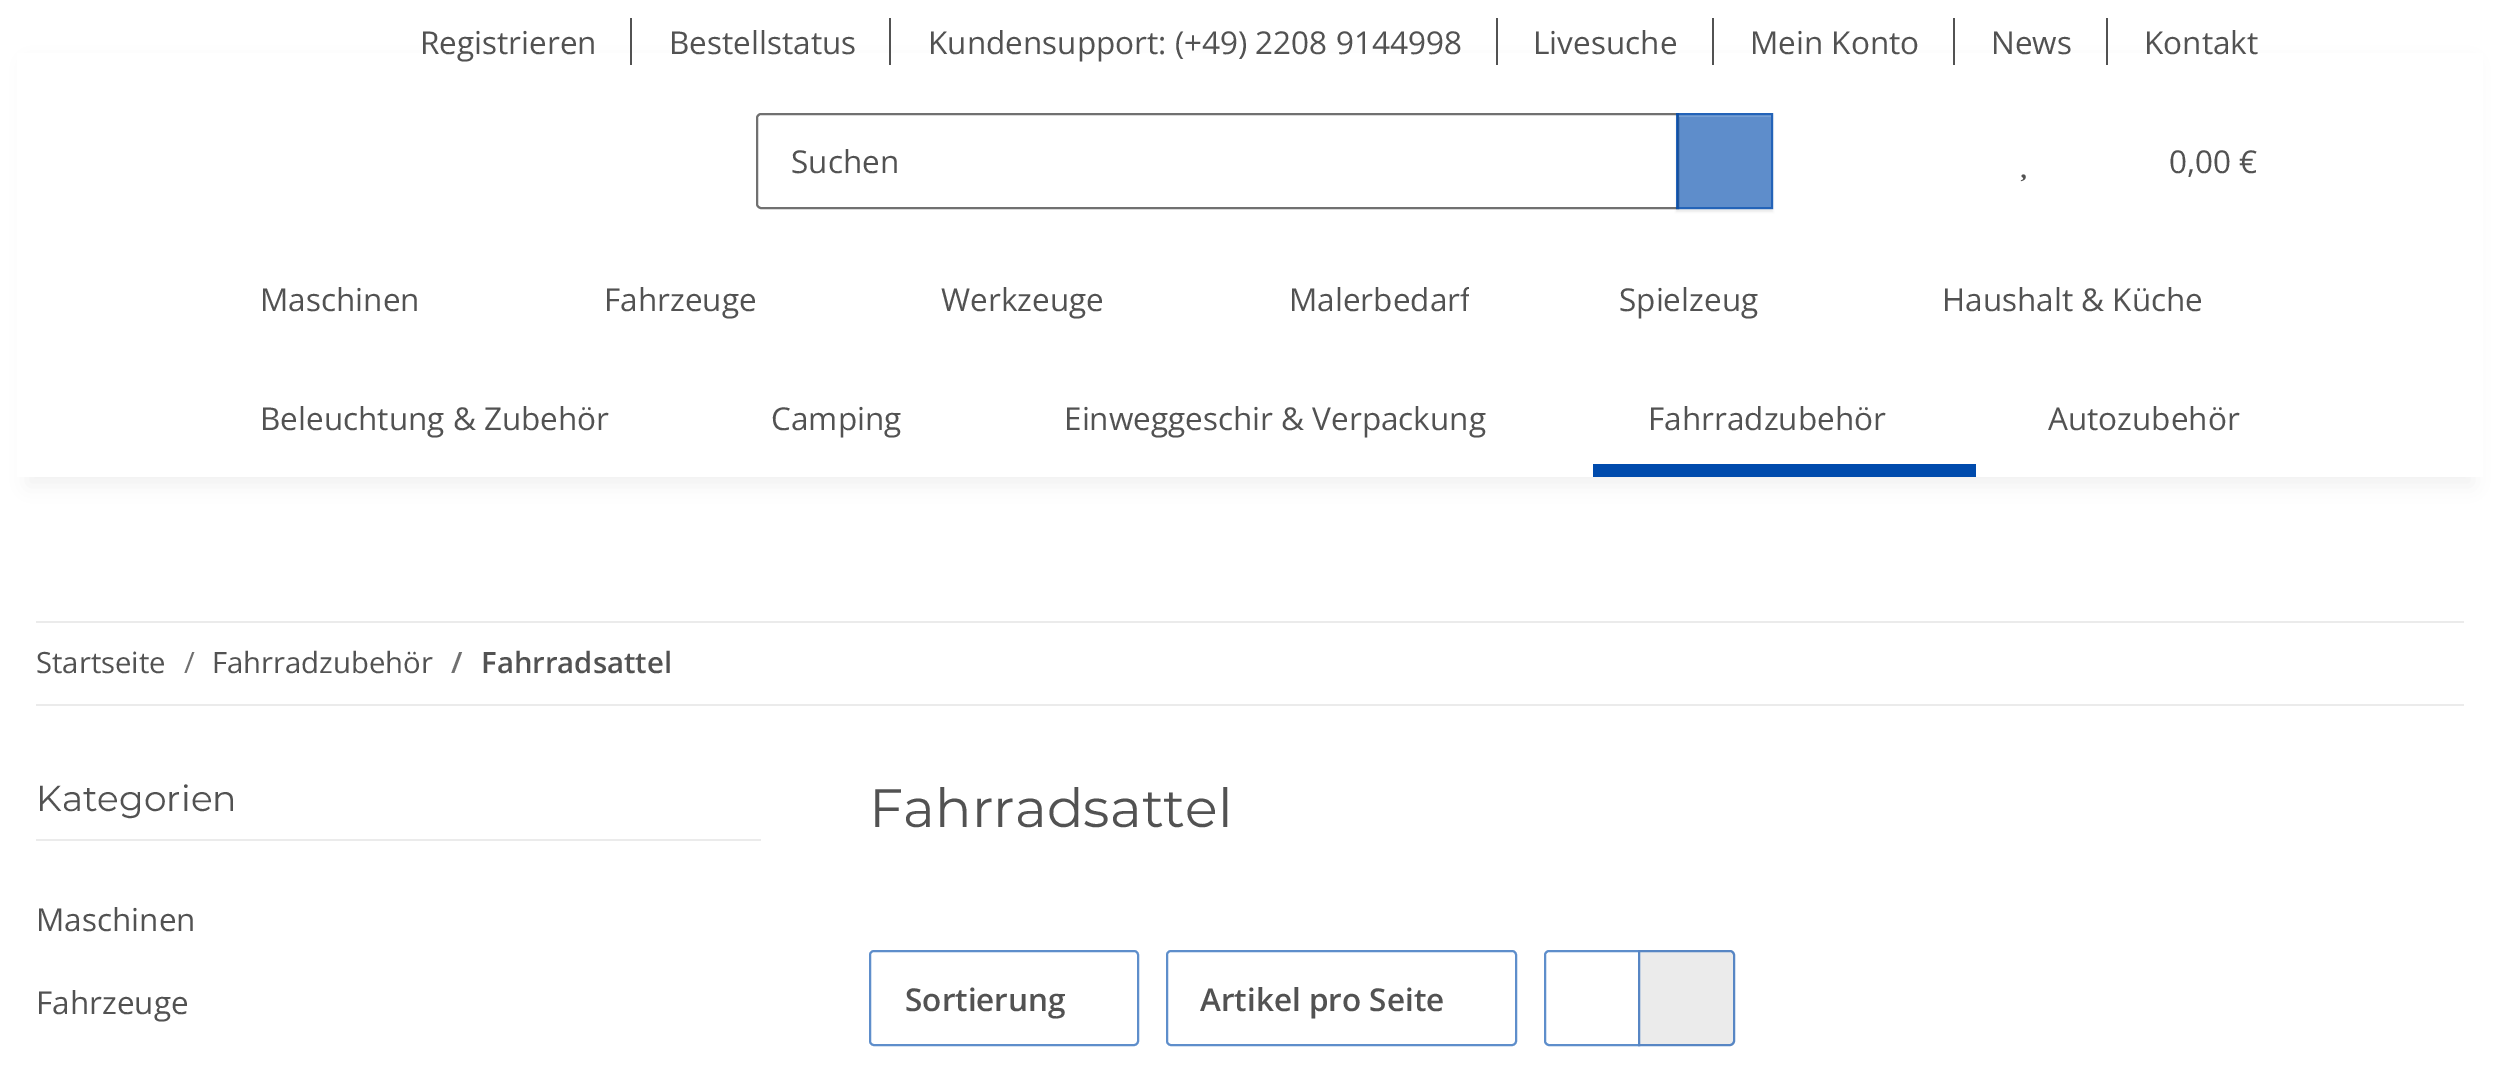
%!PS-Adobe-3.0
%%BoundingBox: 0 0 2498 1089
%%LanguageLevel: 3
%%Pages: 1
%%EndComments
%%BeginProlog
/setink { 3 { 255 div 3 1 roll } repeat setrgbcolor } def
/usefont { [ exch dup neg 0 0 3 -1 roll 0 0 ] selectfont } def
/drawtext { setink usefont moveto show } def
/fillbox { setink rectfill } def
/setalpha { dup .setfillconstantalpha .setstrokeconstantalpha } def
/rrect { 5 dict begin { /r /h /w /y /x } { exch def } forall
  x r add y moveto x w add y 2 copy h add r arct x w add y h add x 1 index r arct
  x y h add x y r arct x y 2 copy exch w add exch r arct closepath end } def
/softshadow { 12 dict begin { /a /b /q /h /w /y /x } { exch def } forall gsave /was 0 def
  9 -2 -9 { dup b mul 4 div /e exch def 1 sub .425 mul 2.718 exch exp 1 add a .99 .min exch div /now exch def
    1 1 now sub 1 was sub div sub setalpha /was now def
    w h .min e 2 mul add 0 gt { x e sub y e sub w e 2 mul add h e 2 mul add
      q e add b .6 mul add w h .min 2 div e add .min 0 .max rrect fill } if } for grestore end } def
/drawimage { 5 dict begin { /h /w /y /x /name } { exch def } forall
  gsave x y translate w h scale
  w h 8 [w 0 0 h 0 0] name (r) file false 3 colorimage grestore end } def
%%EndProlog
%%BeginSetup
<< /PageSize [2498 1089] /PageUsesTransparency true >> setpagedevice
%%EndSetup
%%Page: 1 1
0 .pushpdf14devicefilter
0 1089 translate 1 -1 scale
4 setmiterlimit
0 0 2498 1089 255 255 255 fillbox
0 0 0 setink
27 63 2446 423 0 10 0.06 softshadow
17 53 2466 424 255 255 255 fillbox
(Registrieren) 420 54 /OpenSans-Regular 31.5 82 82 82 drawtext
630 18 2 47 82 82 82 fillbox
(Bestellstatus) 669 54 /OpenSans-Regular 31.5 82 82 82 drawtext
889 18 2 47 82 82 82 fillbox
(Kundensupport: \(+49\) 2208 9144998) 928 54 /OpenSans-Regular 31.5 82 82 82 drawtext
1496 18 2 47 82 82 82 fillbox
(Livesuche) 1533 54 /OpenSans-Regular 31.5 82 82 82 drawtext
1712 18 2 47 82 82 82 fillbox
(Mein Konto) 1750 54 /OpenSans-Regular 31.5 82 82 82 drawtext
1953 18 2 47 82 82 82 fillbox
(News) 1991 54 /OpenSans-Regular 31.5 82 82 82 drawtext
2106 18 2 47 82 82 82 fillbox
(Kontakt) 2144 54 /OpenSans-Regular 31.5 82 82 82 drawtext
112 112 112 setink
2 setlinewidth
761 114 moveto 1678 114 lineto 1678 208 lineto 761 208 lineto 759 208 757 206 757 204 curveto 757 118 lineto 757 116 759 114 761 114 curveto closepath stroke
(Suchen) 791 173 /OpenSans-Regular 31.5 82 82 82 drawtext
gsave
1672 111 moveto 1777 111 lineto 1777 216 lineto 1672 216 lineto closepath 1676 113 moveto 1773 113 lineto 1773 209 lineto 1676 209 lineto closepath eoclip newpath
0 0 0 setink
1676 115 97 97 0 1 0.07 softshadow
grestore
0.63 setalpha
1676 113 97 96 0 75 173 fillbox
1 setalpha
1679 115 92 2 118 159 211 fillbox
0.63 setalpha
0 75 173 setink
1677 114 95 94 rectstroke
1 setalpha
(assets/img1.rgb) 2020 174 6 8 drawimage
(0,00 €) 2169 173 /OpenSans-Regular 31.5 82 82 82 drawtext
(Maschinen) 260 311 /OpenSans-Regular 31.5 82 82 82 drawtext
(Fahrzeuge) 604 311 /OpenSans-Regular 31.5 82 82 82 drawtext
(Werkzeuge) 941 311 /OpenSans-Regular 31.5 82 82 82 drawtext
gsave
1289 275 180 47 rectclip
(Malerbedarf) 1289 311 /OpenSans-Regular 31.5 82 82 82 drawtext
grestore
(Spielzeug) 1619 311 /OpenSans-Regular 31.5 82 82 82 drawtext
(Haushalt & Küche) 1942 311 /OpenSans-Regular 31.5 82 82 82 drawtext
(Beleuchtung & Zubehör) 260 430 /OpenSans-Regular 31.5 82 82 82 drawtext
(Camping) 771 430 /OpenSans-Regular 31.5 82 82 82 drawtext
(Einweggeschir & Verpackung) 1064 430 /OpenSans-Regular 31.5 82 82 82 drawtext
(Fahrradzubehör) 1648 430 /OpenSans-Regular 31.5 82 82 82 drawtext
1593 464 383 13 0 75 173 fillbox
(Autozubehör) 2048 430 /OpenSans-Regular 31.5 82 82 82 drawtext
36 621 2428 2 235 235 235 fillbox
36 704 2428 2 235 235 235 fillbox
(Startseite) 36 673 /OpenSans-Regular 29.25 82 82 82 drawtext
(/) 184 673 /OpenSans-Regular 29.25 112 112 112 drawtext
(Fahrradzubehör) 212 673 /OpenSans-Regular 29.25 82 82 82 drawtext
(/) 451 673 /OpenSans-SemiBold 29.25 112 112 112 drawtext
(Fahrradsattel) 481 673 /OpenSans-SemiBold 29.25 82 82 82 drawtext
36 839 725 2 235 235 235 fillbox
(Kategorien) 36 811 /Montserrat-Regular 36 82 82 82 drawtext
(Maschinen) 36 931 /OpenSans-Regular 31.5 82 82 82 drawtext
(Fahrzeuge) 36 1014 /OpenSans-Regular 31.5 82 82 82 drawtext
(Fahrradsattel) 869 827 /Montserrat-Regular 54 82 82 82 drawtext
94 142 203 setink
870 951 268 94 4 rrect stroke
(Sortierung) 905 1011 /OpenSans-SemiBold 31.5 82 82 82 drawtext
94 142 203 setink
1167 951 349 94 4 rrect stroke
(Artikel pro Seite) 1200 1011 /OpenSans-SemiBold 31.5 82 82 82 drawtext
94 142 203 setink
1549 951 moveto 1639 951 lineto 1639 1045 lineto 1549 1045 lineto 1547 1045 1545 1043 1545 1041 curveto 1545 955 lineto 1545 953 1547 951 1549 951 curveto closepath stroke
235 235 235 setink
1638 950 moveto 1730 950 lineto 1733 950 1735 952 1735 955 curveto 1735 1041 lineto 1735 1044 1733 1046 1730 1046 curveto 1638 1046 lineto closepath fill
0.63 setalpha
0 75 173 setink
1639 951 moveto 1730 951 lineto 1732 951 1734 953 1734 955 curveto 1734 1041 lineto 1734 1043 1732 1045 1730 1045 curveto 1639 1045 lineto closepath stroke
.poppdf14devicefilter showpage
%%EOF
